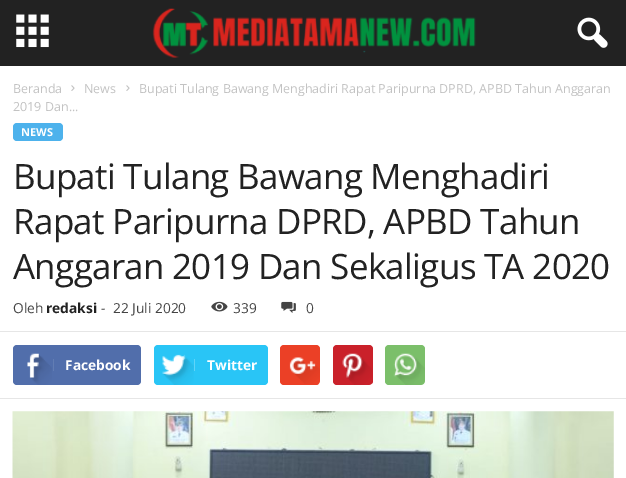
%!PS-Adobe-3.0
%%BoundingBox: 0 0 626 478
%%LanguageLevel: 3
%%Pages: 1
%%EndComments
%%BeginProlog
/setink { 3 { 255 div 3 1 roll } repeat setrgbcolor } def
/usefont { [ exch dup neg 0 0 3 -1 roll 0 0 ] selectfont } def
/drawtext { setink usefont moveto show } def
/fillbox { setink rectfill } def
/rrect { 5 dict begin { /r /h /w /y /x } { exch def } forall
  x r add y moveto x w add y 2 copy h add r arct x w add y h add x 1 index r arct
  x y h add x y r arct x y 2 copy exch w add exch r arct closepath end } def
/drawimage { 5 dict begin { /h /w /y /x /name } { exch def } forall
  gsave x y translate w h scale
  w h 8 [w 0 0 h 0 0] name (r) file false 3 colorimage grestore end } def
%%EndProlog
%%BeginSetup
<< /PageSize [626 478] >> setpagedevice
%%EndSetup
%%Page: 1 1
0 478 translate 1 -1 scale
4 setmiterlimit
0 0 626 478 255 255 255 fillbox
0 0 626 66 34 34 34 fillbox
(assets/img1.rgb) 16 14 33 34 drawimage
(assets/img2.rgb) 152 8 324 50 drawimage
(assets/img3.rgb) 577 17 31 31 drawimage
(Beranda) 13 93 /OpenSans-Regular 12.5 195 195 195 drawtext
(assets/img4.rgb) 71 85 4 6 drawimage
(News) 84 93 /OpenSans-Regular 12.5 195 195 195 drawtext
(assets/img4.rgb) 126 85 4 6 drawimage
(Bupati Tulang Bawang Menghadiri Rapat Paripurna DPRD, APBD Tahun Anggaran) 139 93 /OpenSans-Regular 12.5 195 195 195 drawtext
(2019 Dan...) 13 111 /OpenSans-Regular 12.5 195 195 195 drawtext
77 178 236 setink
13 123 50 18 4 rrect fill
(NEWS) 21 136 /OpenSans-Bold 11 255 255 255 drawtext
/OpenSans-Regular 35 usefont
34 34 34 setink
13 189 moveto -0.7 0 (Bupati Tulang Bawang Menghadiri) ashow
13 234 moveto -0.7 0 (Rapat Paripurna DPRD, APBD Tahun) ashow
13 279 moveto -0.7 0 (Anggaran 2019 Dan Sekaligus TA 2020) ashow
(Oleh) 13 313 /OpenSans-Regular 13.75 68 68 68 drawtext
(redaksi) 46 313 /OpenSans-Bold 13.75 34 34 34 drawtext
(-) 101 313 /OpenSans-Regular 13.75 68 68 68 drawtext
(22 Juli 2020) 113 313 /OpenSans-Regular 13.75 68 68 68 drawtext
(assets/img5.rgb) 211 301 17 11 drawimage
(339) 233 313 /OpenSans-Regular 13.75 68 68 68 drawtext
(assets/img6.rgb) 281 301 15 12 drawimage
(0) 306 313 /OpenSans-Regular 13.75 68 68 68 drawtext
0 331 626 1 230 230 230 fillbox
81 110 171 setink
13 345 128 40 4 rrect fill
(assets/img7.rgb) 27 353 25 32 drawimage
53 359 1 12 98 125 179 fillbox
(Facebook) 65 370 /OpenSans-Bold 13.75 255 255 255 drawtext
41 197 246 setink
154 345 114 40 4 rrect fill
(assets/img8.rgb) 162 354 32 31 drawimage
194 359 1 12 95 212 248 fillbox
(Twitter) 207 370 /OpenSans-Bold 13.75 255 255 255 drawtext
235 64 38 setink
280 345 40 40 4 rrect fill
(assets/img9.rgb) 289 357 31 27 drawimage
202 33 42 setink
333 345 40 40 4 rrect fill
(assets/img10.rgb) 342 353 30 32 drawimage
123 191 106 setink
385 345 40 40 4 rrect fill
(assets/img11.rgb) 393 353 32 32 drawimage
0 398 626 1 230 230 230 fillbox
(assets/img12.rgb) 12 411 602 67 drawimage
showpage
%%EOF
